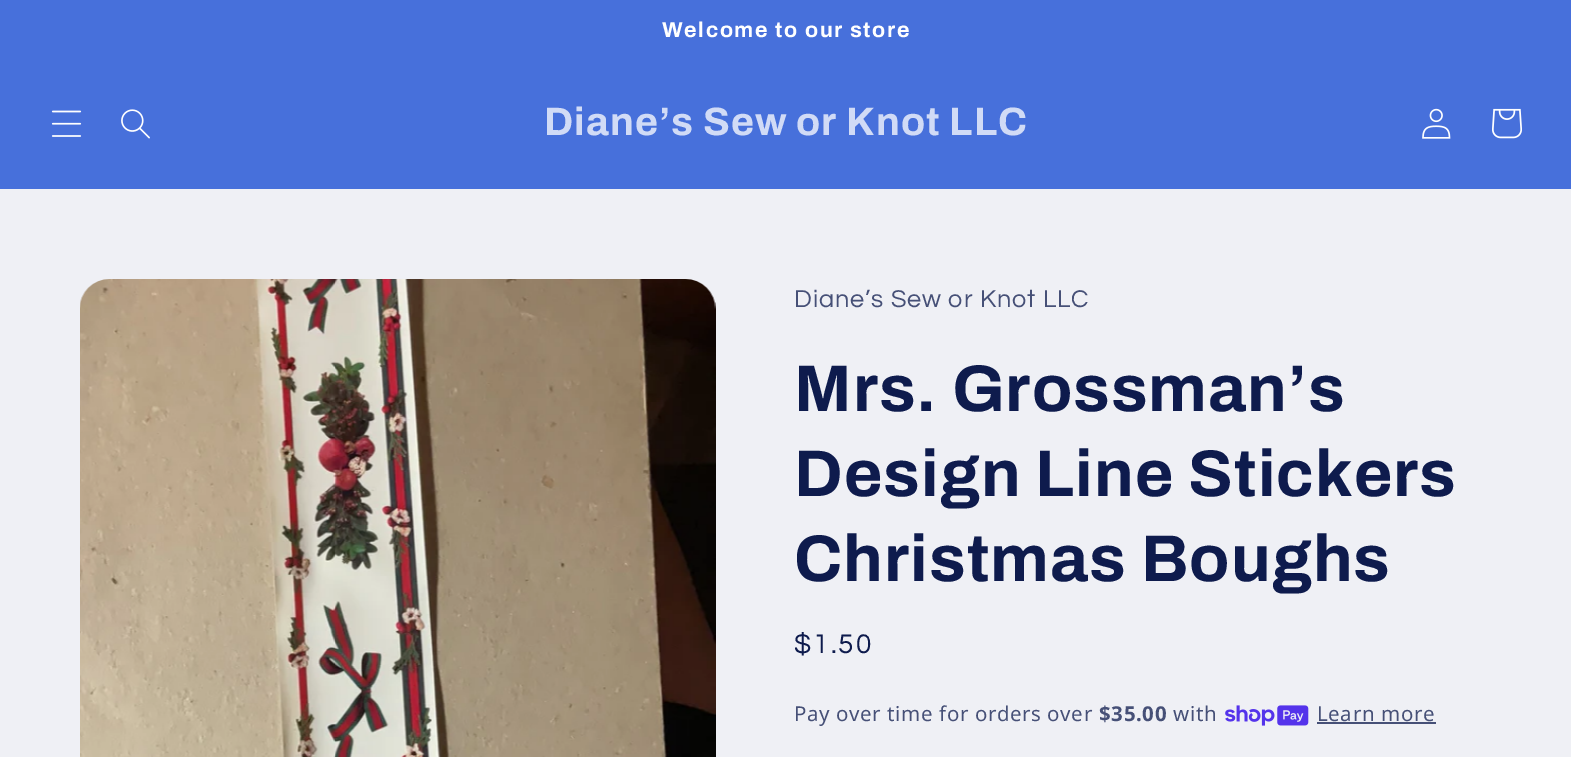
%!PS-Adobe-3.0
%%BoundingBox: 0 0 1571 757
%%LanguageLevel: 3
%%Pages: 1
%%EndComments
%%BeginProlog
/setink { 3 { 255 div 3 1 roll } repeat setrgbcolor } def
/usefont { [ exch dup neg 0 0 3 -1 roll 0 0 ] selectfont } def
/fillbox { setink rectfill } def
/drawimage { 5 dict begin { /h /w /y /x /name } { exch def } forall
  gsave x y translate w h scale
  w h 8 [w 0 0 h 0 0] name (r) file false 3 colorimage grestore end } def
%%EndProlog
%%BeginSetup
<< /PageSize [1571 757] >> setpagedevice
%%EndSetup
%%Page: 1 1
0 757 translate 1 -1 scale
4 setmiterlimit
0 0 1571 757 239 240 245 fillbox
0 0 1571 189 71 112 219 fillbox
/Archivo-Bold 21.5 usefont
255 255 255 setink
662 37 moveto 1.6 0 (Welcome to our store) ashow
(assets/img1.rgb) 51 110 31 27 drawimage
(assets/img2.rgb) 121 109 29 30 drawimage
/Archivo-Bold 39.6 usefont
209 219 246 setink
544 135 moveto 1 0 (Diane’s Sew or Knot LLC) ashow
(assets/img3.rgb) 1422 108 29 31 drawimage
(assets/img4.rgb) 1492 108 30 31 drawimage
(assets/img5.rgb) 80 279 636 478 drawimage
/Questrial-Regular 25.25 usefont
70 80 119 setink
794 307 moveto 0.95 0 (Diane’s Sew or Knot LLC) ashow
/Archivo-Bold 66 usefont
14 27 77 setink
794 411 moveto 1 0 (Mrs. Grossman’s) ashow
794 496 moveto 1 0 (Design Line Stickers) ashow
794 581 moveto 1 0 (Christmas Boughs) ashow
/Questrial-Regular 28 usefont
794 653 moveto 2 0 ($1.50) ashow
/NotoSans-Regular 20.5 usefont
70 80 119 setink
794 721 moveto 0.6 0 (Pay over time for orders over) ashow
/NotoSans-Bold 20.5 usefont
1099 721 moveto 0.6 0 ($35.00) ashow
/NotoSans-Regular 20.5 usefont
1173 721 moveto 0.6 0 (with) ashow
(assets/img6.rgb) 1225 705 84 21 drawimage
1317 721 moveto 0.6 0 (Learn more) ashow
1317 722 119 2 70 80 119 fillbox
showpage
%%EOF
